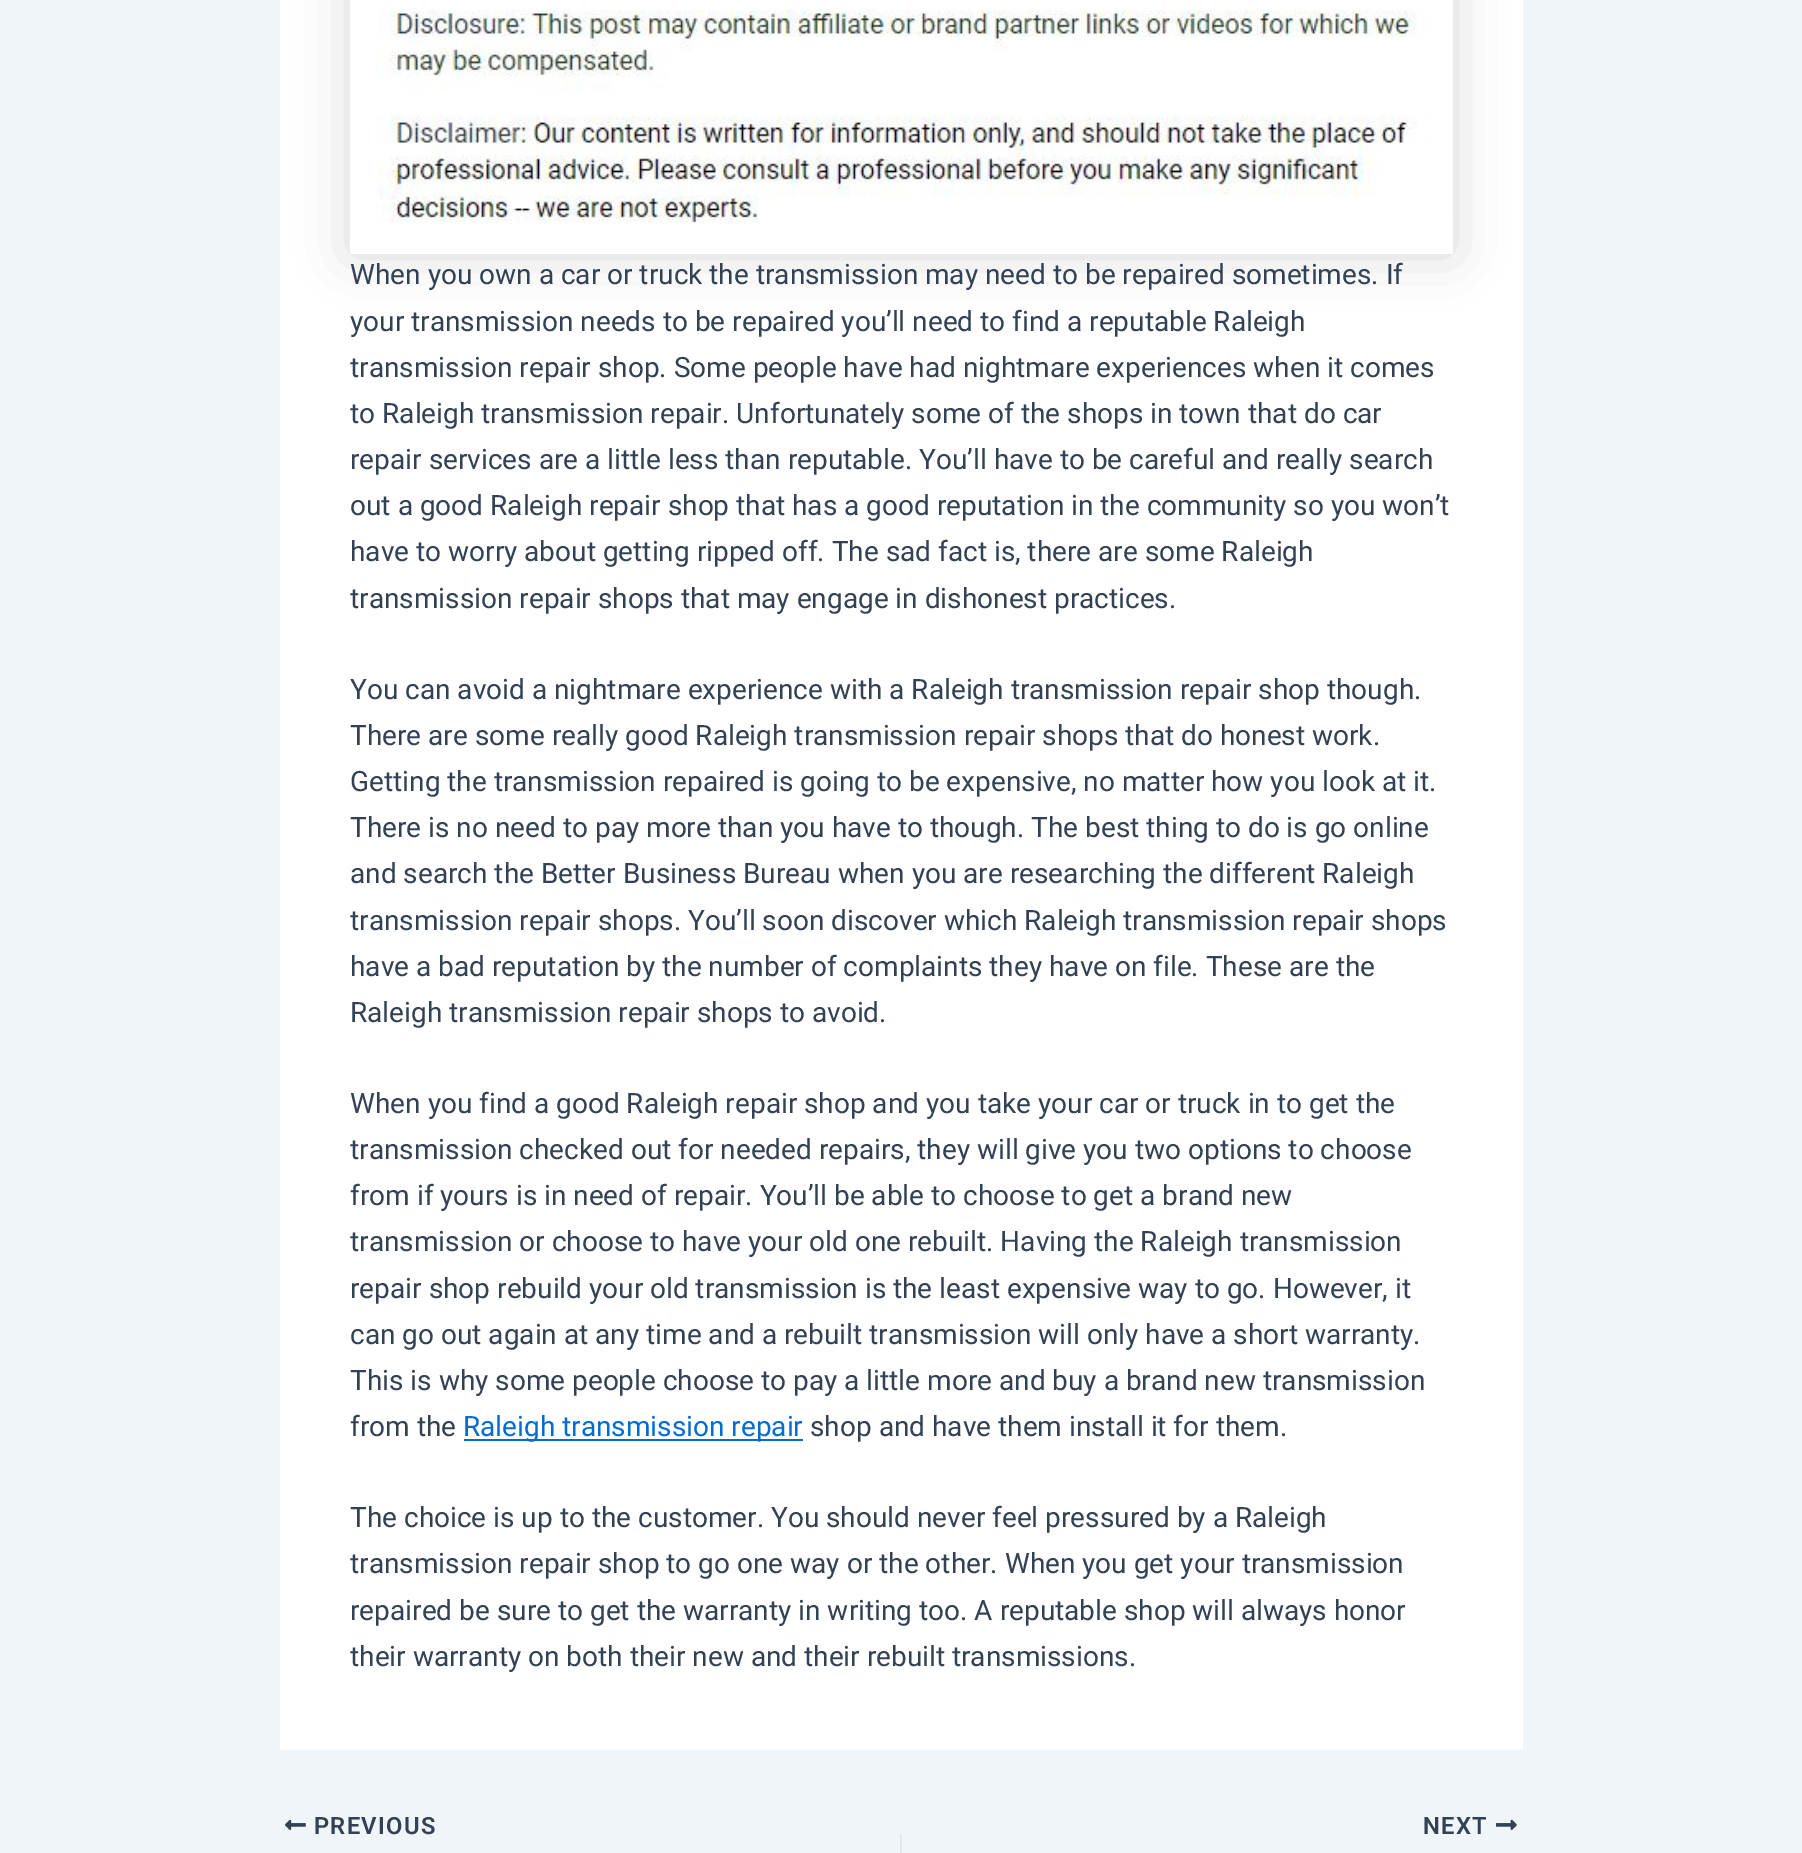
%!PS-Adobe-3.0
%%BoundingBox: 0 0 1802 1853
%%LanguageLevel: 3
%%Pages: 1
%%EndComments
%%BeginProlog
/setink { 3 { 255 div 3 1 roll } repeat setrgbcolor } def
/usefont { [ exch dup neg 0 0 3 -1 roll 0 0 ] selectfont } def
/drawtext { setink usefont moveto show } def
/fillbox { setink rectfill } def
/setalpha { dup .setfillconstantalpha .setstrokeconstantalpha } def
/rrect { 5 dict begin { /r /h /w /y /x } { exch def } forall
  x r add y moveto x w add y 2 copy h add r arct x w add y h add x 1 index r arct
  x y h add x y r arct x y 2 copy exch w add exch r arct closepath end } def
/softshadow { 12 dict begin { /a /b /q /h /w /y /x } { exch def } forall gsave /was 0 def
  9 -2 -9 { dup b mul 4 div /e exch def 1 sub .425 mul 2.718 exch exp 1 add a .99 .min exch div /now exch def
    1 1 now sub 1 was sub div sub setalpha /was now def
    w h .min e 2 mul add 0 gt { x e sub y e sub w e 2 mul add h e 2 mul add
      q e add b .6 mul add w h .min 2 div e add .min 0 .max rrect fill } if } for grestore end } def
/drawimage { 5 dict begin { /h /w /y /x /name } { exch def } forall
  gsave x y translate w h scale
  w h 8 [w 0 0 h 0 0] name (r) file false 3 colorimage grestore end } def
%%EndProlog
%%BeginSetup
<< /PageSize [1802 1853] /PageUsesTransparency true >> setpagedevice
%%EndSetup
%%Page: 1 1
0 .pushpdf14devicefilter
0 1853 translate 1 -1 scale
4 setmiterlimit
0 0 1802 1853 240 245 250 fillbox
280 0 1243 1750 255 255 255 fillbox
gsave
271 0 moveto 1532 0 lineto 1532 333 lineto 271 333 lineto closepath 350 -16 moveto 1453 -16 lineto 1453 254 lineto 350 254 lineto closepath eoclip newpath
0 0 0 setink
350 -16 1103 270 0 26 0.15 softshadow
grestore
(assets/img1.rgb) 376 8 1077 222 drawimage
(When you own a car or truck the transmission may need to be repaired sometimes. If) 350 284 /Roboto-Regular 28 51 65 85 drawtext
(your transmission needs to be repaired you’ll need to find a reputable Raleigh) 350 331 /Roboto-Regular 28 51 65 85 drawtext
(transmission repair shop. Some people have had nightmare experiences when it comes) 350 377 /Roboto-Regular 28 51 65 85 drawtext
(to Raleigh transmission repair. Unfortunately some of the shops in town that do car) 350 423 /Roboto-Regular 28 51 65 85 drawtext
(repair services are a little less than reputable. You’ll have to be careful and really search) 350 469 /Roboto-Regular 28 51 65 85 drawtext
(out a good Raleigh repair shop that has a good reputation in the community so you won’t) 350 515 /Roboto-Regular 28 51 65 85 drawtext
(have to worry about getting ripped off. The sad fact is, there are some Raleigh) 350 561 /Roboto-Regular 28 51 65 85 drawtext
(transmission repair shops that may engage in dishonest practices.) 350 608 /Roboto-Regular 28 51 65 85 drawtext
(You can avoid a nightmare experience with a Raleigh transmission repair shop though.) 350 699 /Roboto-Regular 28 51 65 85 drawtext
(There are some really good Raleigh transmission repair shops that do honest work.) 350 745 /Roboto-Regular 28 51 65 85 drawtext
(Getting the transmission repaired is going to be expensive, no matter how you look at it.) 350 791 /Roboto-Regular 28 51 65 85 drawtext
(There is no need to pay more than you have to though. The best thing to do is go online) 350 837 /Roboto-Regular 28 51 65 85 drawtext
(and search the Better Business Bureau when you are researching the different Raleigh) 350 883 /Roboto-Regular 28 51 65 85 drawtext
(transmission repair shops. You’ll soon discover which Raleigh transmission repair shops) 350 930 /Roboto-Regular 28 51 65 85 drawtext
(have a bad reputation by the number of complaints they have on file. These are the) 350 976 /Roboto-Regular 28 51 65 85 drawtext
(Raleigh transmission repair shops to avoid.) 350 1022 /Roboto-Regular 28 51 65 85 drawtext
(When you find a good Raleigh repair shop and you take your car or truck in to get the) 350 1113 /Roboto-Regular 28 51 65 85 drawtext
(transmission checked out for needed repairs, they will give you two options to choose) 350 1159 /Roboto-Regular 28 51 65 85 drawtext
(from if yours is in need of repair. You’ll be able to choose to get a brand new) 350 1205 /Roboto-Regular 28 51 65 85 drawtext
(transmission or choose to have your old one rebuilt. Having the Raleigh transmission) 350 1251 /Roboto-Regular 28 51 65 85 drawtext
(repair shop rebuild your old transmission is the least expensive way to go. However, it) 350 1298 /Roboto-Regular 28 51 65 85 drawtext
(can go out again at any time and a rebuilt transmission will only have a short warranty.) 350 1344 /Roboto-Regular 28 51 65 85 drawtext
(This is why some people choose to pay a little more and buy a brand new transmission) 350 1390 /Roboto-Regular 28 51 65 85 drawtext
(from the) 350 1436 /Roboto-Regular 28 51 65 85 drawtext
464 1439 339 2 4 107 210 fillbox
(Raleigh transmission repair) 463 1436 /Roboto-Regular 28 4 107 210 drawtext
(shop and have them install it for them.) 810 1436 /Roboto-Regular 28 51 65 85 drawtext
(The choice is up to the customer. You should never feel pressured by a Raleigh) 350 1527 /Roboto-Regular 28 51 65 85 drawtext
(transmission repair shop to go one way or the other. When you get your transmission) 350 1573 /Roboto-Regular 28 51 65 85 drawtext
(repaired be sure to get the warranty in writing too. A reputable shop will always honor) 350 1620 /Roboto-Regular 28 51 65 85 drawtext
(their warranty on both their new and their rebuilt transmissions.) 350 1666 /Roboto-Regular 28 51 65 85 drawtext
(assets/img2.rgb) 285 1819 21 11 drawimage
/Roboto-SemiBold 23.75 usefont
314 1834 moveto 1.25 0 (PREVIOUS) ashow
900 1834 2 19 225 232 237 fillbox
51 65 85 setink
1423 1834 moveto 1.25 0 (NEXT) ashow
(assets/img3.rgb) 1496 1819 21 11 drawimage
.poppdf14devicefilter showpage
%%EOF
